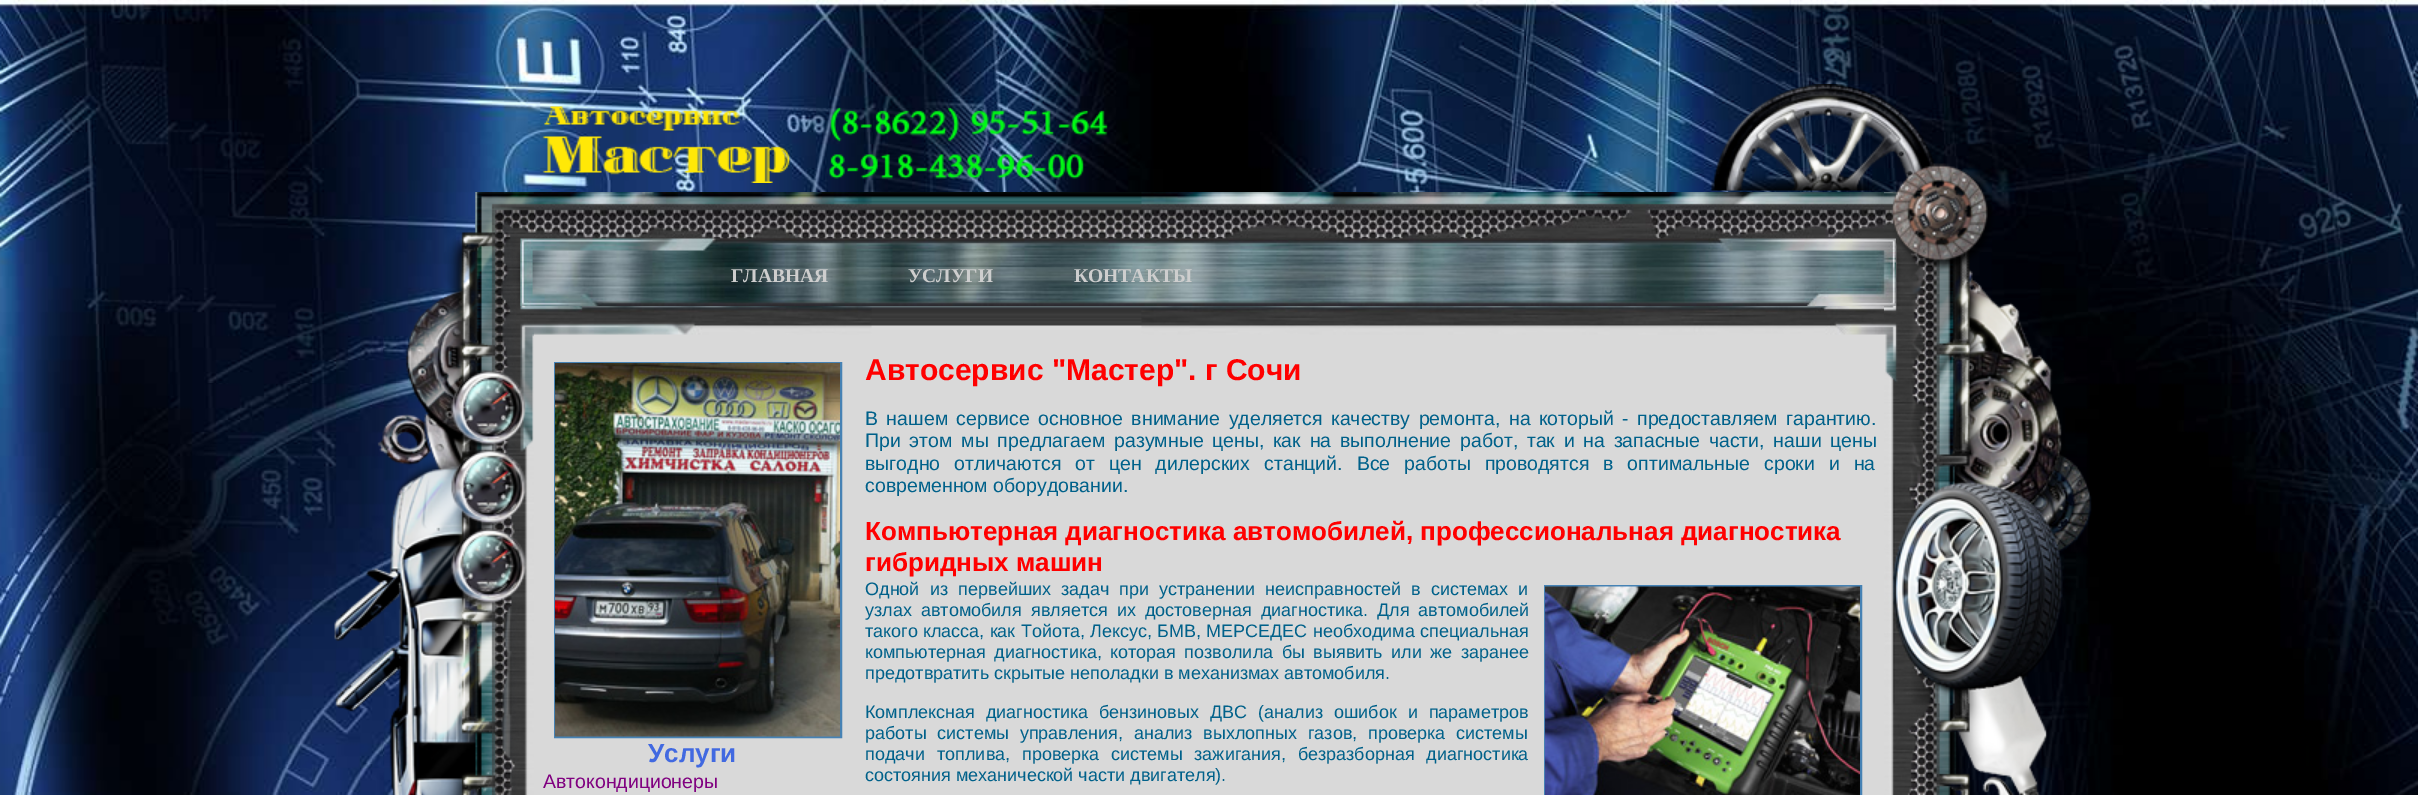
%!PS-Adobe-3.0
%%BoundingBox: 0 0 2418 795
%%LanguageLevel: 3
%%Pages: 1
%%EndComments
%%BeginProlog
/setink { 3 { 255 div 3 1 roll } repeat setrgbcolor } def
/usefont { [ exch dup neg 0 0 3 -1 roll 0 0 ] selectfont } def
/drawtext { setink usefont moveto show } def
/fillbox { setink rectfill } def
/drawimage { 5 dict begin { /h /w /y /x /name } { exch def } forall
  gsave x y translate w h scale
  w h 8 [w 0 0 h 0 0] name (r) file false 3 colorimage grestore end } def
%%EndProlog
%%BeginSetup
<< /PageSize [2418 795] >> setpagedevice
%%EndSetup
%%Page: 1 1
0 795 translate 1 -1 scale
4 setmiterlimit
0 0 2418 795 255 255 255 fillbox
(assets/img1.rgb) 0 0 2418 795 drawimage
(assets/img2.rgb) 871 192 271 134 drawimage
534 326 1350 469 217 217 217 fillbox
(assets/img3.rgb) 534 192 338 143 drawimage
(assets/img4.rgb) 1141 192 743 143 drawimage
(assets/img5.rgb) 542 106 566 77 drawimage
(assets/img6.rgb) 1711 84 226 107 drawimage
(assets/img8.rgb) 475 192 59 603 drawimage
(assets/img9.rgb) 334 192 200 603 drawimage
(assets/img12.rgb) 1884 192 73 599 drawimage
(assets/img13.rgb) 1884 163 208 632 drawimage
(assets/img7.rgb) 520 238 1376 68 drawimage
(ГЛАВНАЯ) 731 282 /LiberationSerif-Bold 19.5 206 206 206 drawtext
(УСЛУГИ) 908 282 /LiberationSerif-Bold 19.5 206 206 206 drawtext
(КОНТАКТЫ) 1074 282 /LiberationSerif-Bold 19.5 206 206 206 drawtext
70 130 180 setink
2 setlinewidth
555 363 286 374 rectstroke
(assets/img10.rgb) 555 363 285 374 drawimage
(Услуги) 648 762 /LiberationSans-Bold 26 65 105 225 drawtext
(Автокондиционеры) 543 788 /LiberationSans-Regular 19.5 128 0 128 drawtext
(Автосервис "Мастер". г Сочи) 865 380 /LiberationSans-Bold 30 255 0 0 drawtext
/LiberationSans-Regular 19.5 usefont
0 97 138 setink
865 425 moveto 3 0 32 (В нашем сервисе основное внимание уделяется качеству ремонта, на который -) widthshow
1637 425 moveto 3 0 32 (предоставляем гарантию.) widthshow
865 447 moveto 3.25 0 32 (При этом мы предлагаем разумные цены, как на выполнение) widthshow
1460 447 moveto 3.25 0 32 (работ, так и на запасные части, наши цены) widthshow
865 470 moveto 8.5 0 32 (выгодно отличаются от цен дилерских) widthshow
1264 470 moveto 8.5 0 32 (станций. Все работы проводятся в оптимальные сроки и на) widthshow
(современном оборудовании.) 865 492 /LiberationSans-Regular 19.5 0 97 138 drawtext
(Компьютерная диагностика автомобилей, профессиональная диагностика) 865 540 /LiberationSans-Bold 26 255 0 0 drawtext
(гибридных машин) 865 571 /LiberationSans-Bold 26 255 0 0 drawtext
(Одной) 865 595 /LiberationSans-Regular 18 0 97 138 drawtext
930 595 moveto 5 0 32 (из первейших задач при устранении неисправностей в системах и) widthshow
70 130 180 setink
1545 586 316 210 rectstroke
(assets/img11.rgb) 1545 586 315 209 drawimage
0 97 138 setink
865 616 moveto 4 0 32 (узлах автомобиля) widthshow
1031 616 moveto 4 0 32 (является их достоверная диагностика. Для автомобилей) widthshow
865 637 moveto 0.25 0 32 (такого класса, как Тойота, Лексус, БМВ, МЕРСЕДЕС необходима специальная) widthshow
865 658 moveto 3.5 0 32 (компьютерная диагностика,) widthshow
1110 658 moveto 3.5 0 32 (которая позволила бы выявить или же заранее) widthshow
(предотвратить скрытые неполадки в механизмах автомобиля.) 865 679 /LiberationSans-Regular 18 0 97 138 drawtext
865 718 moveto 6 0 32 (Комплексная диагностика бензиновых ДВС \(анализ ошибок и параметров) widthshow
865 739 moveto 5.75 0 32 (работы системы управления, анализ выхлопных газов, проверка системы) widthshow
(подачи) 865 760 /LiberationSans-Regular 18 0 97 138 drawtext
937 760 moveto 6.75 0 32 (топлива, проверка системы зажигания, безразборная диагностика) widthshow
(состояния механической части двигателя\).) 865 781 /LiberationSans-Regular 18 0 97 138 drawtext
showpage
%%EOF
